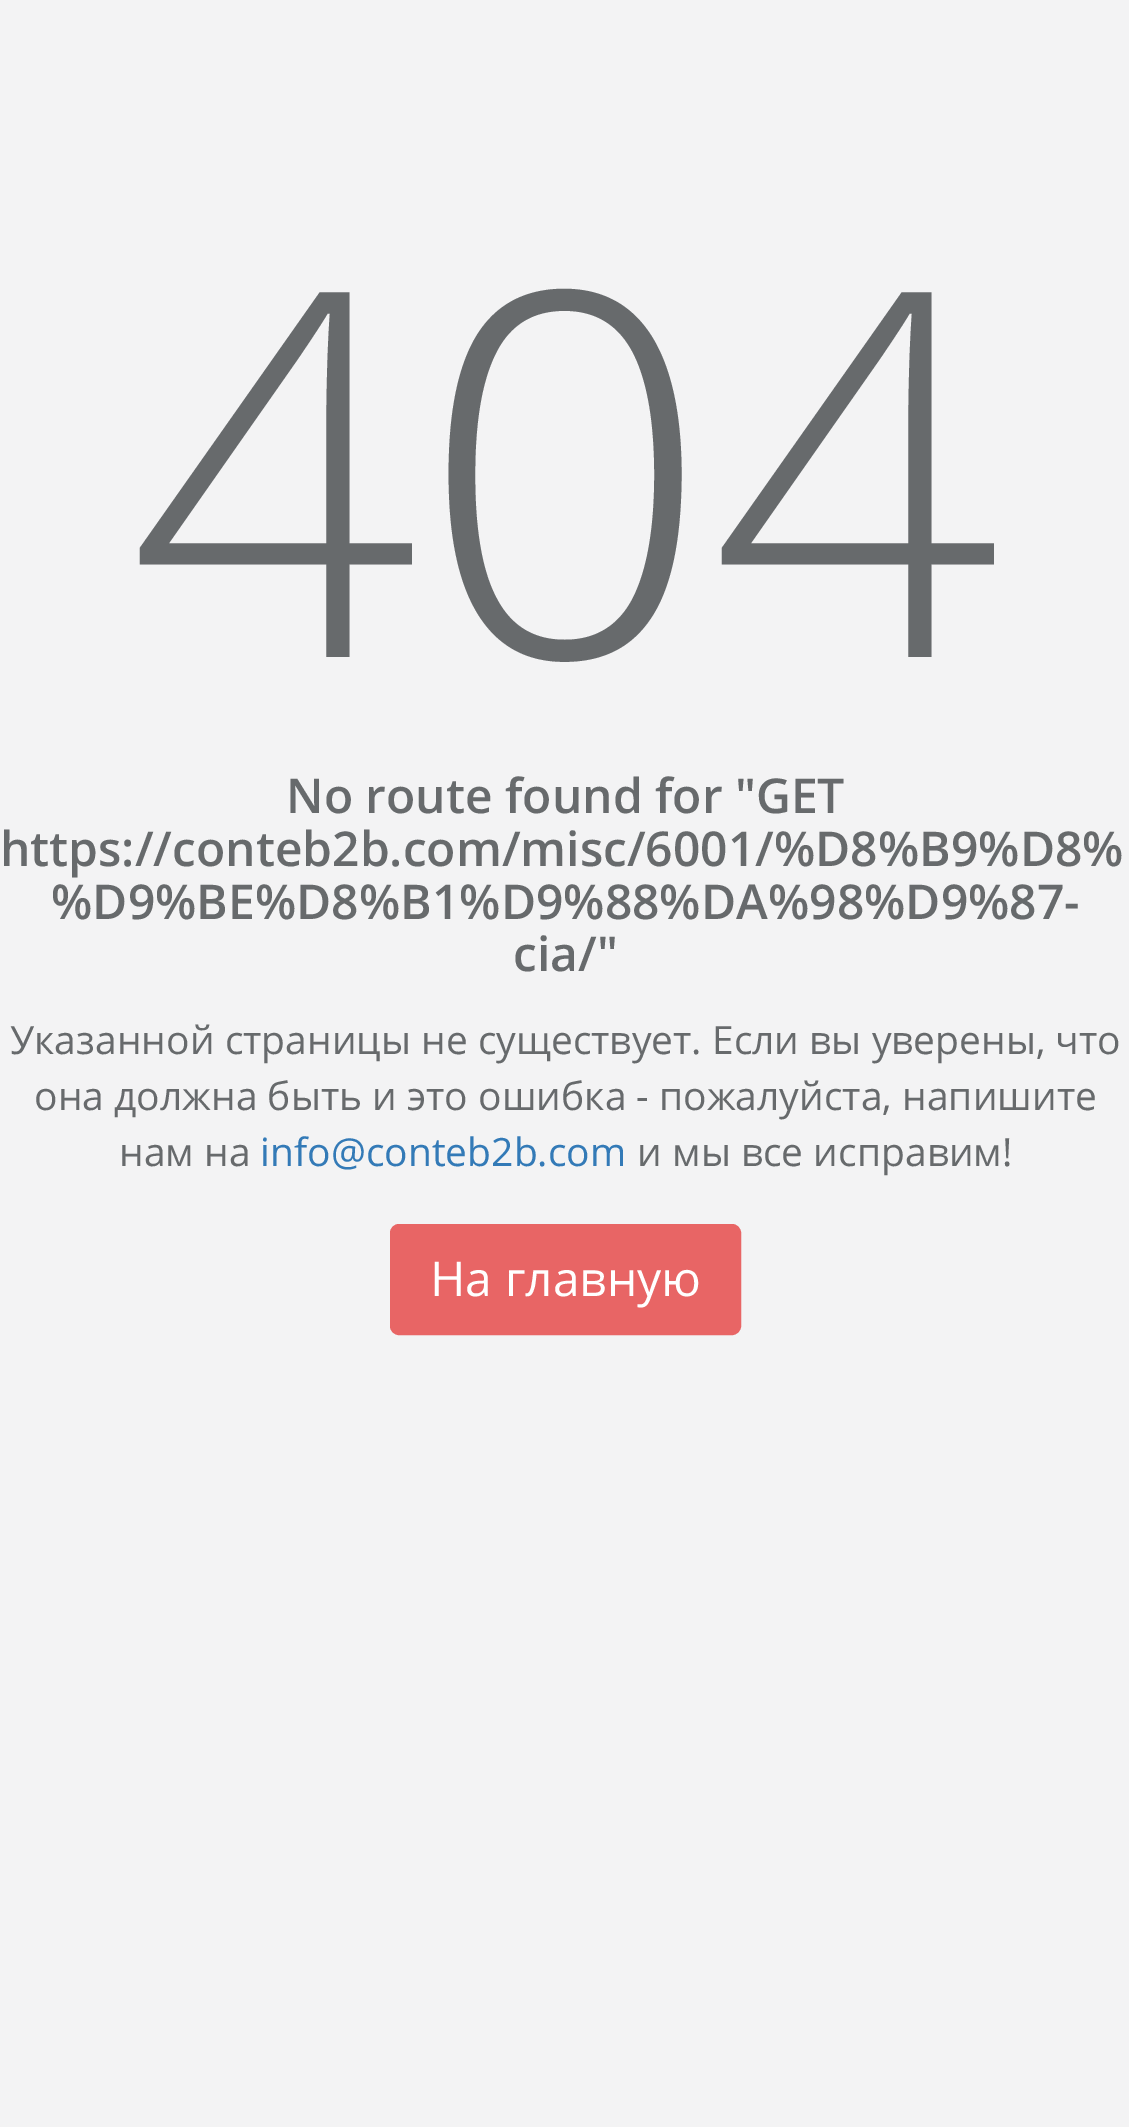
%!PS-Adobe-3.0
%%BoundingBox: 0 0 1129 2127
%%LanguageLevel: 3
%%Pages: 1
%%EndComments
%%BeginProlog
/setink { 3 { 255 div 3 1 roll } repeat setrgbcolor } def
/usefont { [ exch dup neg 0 0 3 -1 roll 0 0 ] selectfont } def
/drawtext { setink usefont moveto show } def
/fillbox { setink rectfill } def
/rrect { 5 dict begin { /r /h /w /y /x } { exch def } forall
  x r add y moveto x w add y 2 copy h add r arct x w add y h add x 1 index r arct
  x y h add x y r arct x y 2 copy exch w add exch r arct closepath end } def
%%EndProlog
%%BeginSetup
<< /PageSize [1129 2127] >> setpagedevice
%%EndSetup
%%Page: 1 1
0 2127 translate 1 -1 scale
4 setmiterlimit
0 0 1129 2127 243 243 244 fillbox
(404) 129 657 /OpenSans-Light 510 103 106 108 drawtext
(No route found for "GET) 286 813 /OpenSans-SemiBold 48 103 106 108 drawtext
(https://conteb2b.com/misc/6001/%D8%B9%D8%) 0 866 /OpenSans-SemiBold 48 103 106 108 drawtext
(%D9%BE%D8%B1%D9%88%DA%98%D9%87-) 51 919 /OpenSans-SemiBold 48 103 106 108 drawtext
(cia/") 513 971 /OpenSans-SemiBold 48 103 106 108 drawtext
(Указанной страницы не существует. Если вы уверены, что) 10 1054 /OpenSans-Regular 39 103 106 108 drawtext
(она должна быть и это ошибка - пожалуйста, напишите) 34 1110 /OpenSans-Regular 39 103 106 108 drawtext
(нам на) 119 1166 /OpenSans-Regular 39 103 106 108 drawtext
(info@conteb2b.com) 260 1166 /OpenSans-Regular 39 51 122 183 drawtext
(и мы все исправим!) 637 1166 /OpenSans-Regular 39 103 106 108 drawtext
232 101 101 setink
391.5 1225.5 348 108 7.5 rrect gsave fill grestore
3 setlinewidth
stroke
(На главную) 430 1296 /OpenSans-Regular 48 255 255 255 drawtext
showpage
%%EOF
